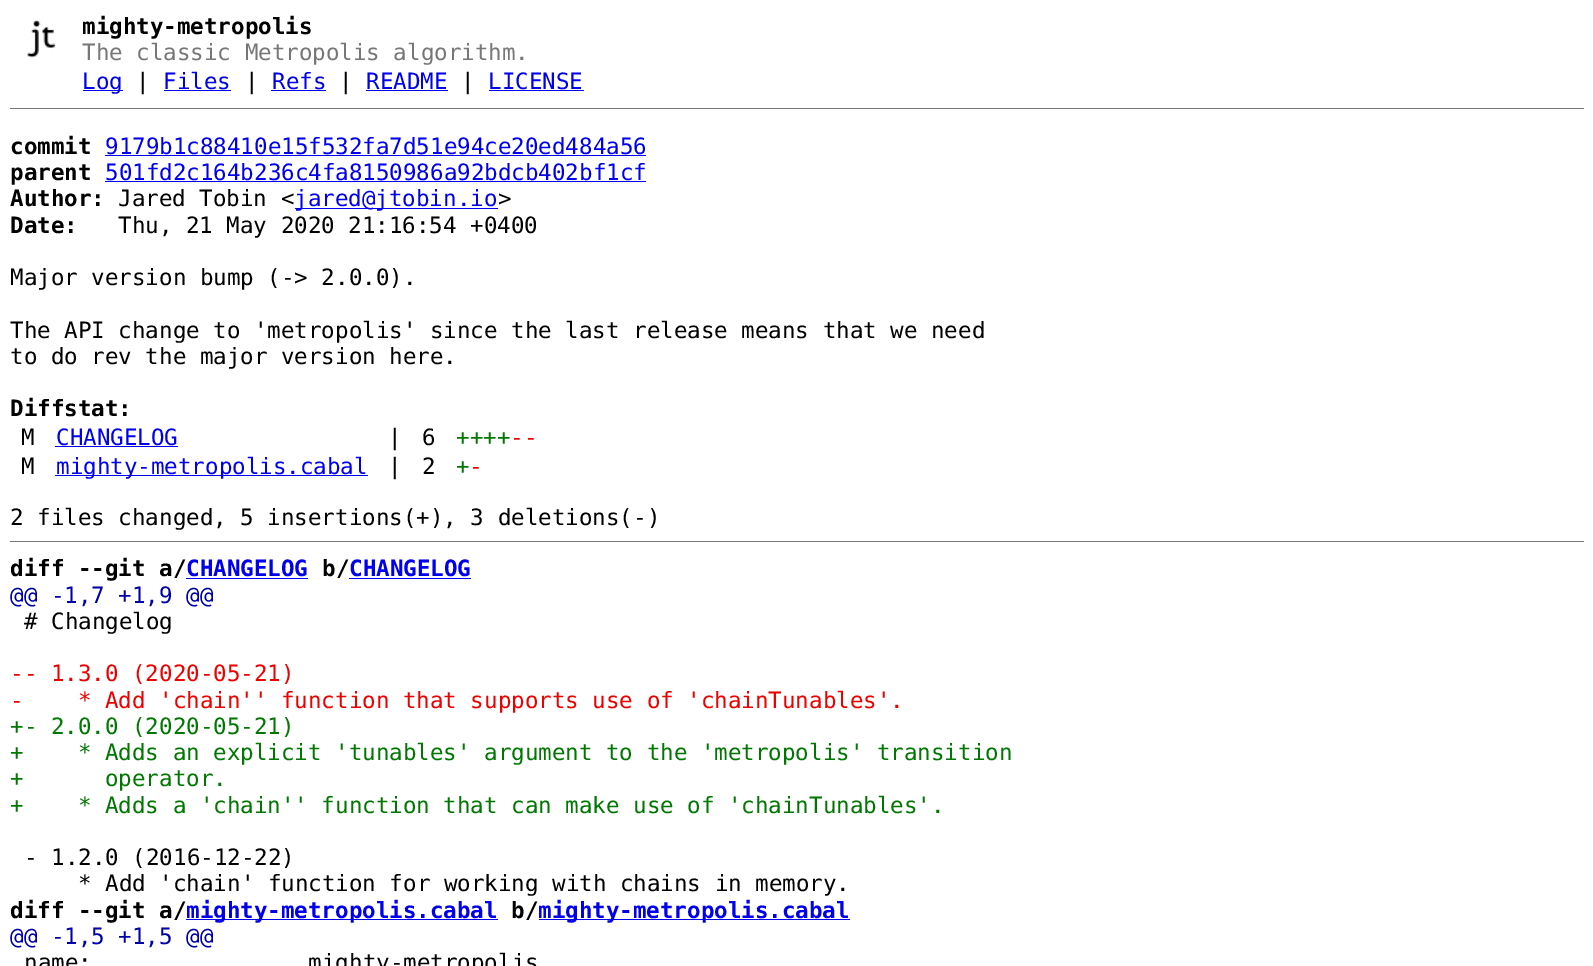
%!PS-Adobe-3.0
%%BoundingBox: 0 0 1593 966
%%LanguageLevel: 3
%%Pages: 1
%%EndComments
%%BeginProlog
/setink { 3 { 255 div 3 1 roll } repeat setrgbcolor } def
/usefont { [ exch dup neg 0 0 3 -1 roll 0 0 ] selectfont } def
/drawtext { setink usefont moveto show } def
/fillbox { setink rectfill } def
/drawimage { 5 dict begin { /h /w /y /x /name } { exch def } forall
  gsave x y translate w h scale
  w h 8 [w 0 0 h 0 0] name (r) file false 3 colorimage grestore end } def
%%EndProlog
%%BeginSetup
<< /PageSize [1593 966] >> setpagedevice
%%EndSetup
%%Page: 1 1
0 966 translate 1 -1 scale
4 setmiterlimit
0 0 1593 966 255 255 255 fillbox
(assets/img1.rgb) 27 20 29 38 drawimage
(mighty-metropolis) 82 34 /DejaVuSansMono-Bold 22.5 0 0 0 drawtext
(The classic Metropolis algorithm.) 82 60 /DejaVuSansMono-Regular 22.5 119 119 119 drawtext
83 90 40 1 0 0 238 fillbox
(Log) 82 89 /DejaVuSansMono-Regular 22.5 0 0 238 drawtext
(|) 136 89 /DejaVuSansMono-Regular 22.5 0 0 0 drawtext
(Files) 163 89 /DejaVuSansMono-Regular 22.5 0 0 238 drawtext
164 90 67 1 0 0 238 fillbox
(|) 245 89 /DejaVuSansMono-Regular 22.5 0 0 0 drawtext
(Refs) 272 89 /DejaVuSansMono-Regular 22.5 0 0 238 drawtext
271 90 55 1 0 0 238 fillbox
(|) 339 89 /DejaVuSansMono-Regular 22.5 0 0 0 drawtext
(README) 366 89 /DejaVuSansMono-Regular 22.5 0 0 238 drawtext
366 90 82 1 0 0 238 fillbox
(|) 461 89 /DejaVuSansMono-Regular 22.5 0 0 0 drawtext
(LICENSE) 488 89 /DejaVuSansMono-Regular 22.5 0 0 238 drawtext
489 90 95 1 0 0 238 fillbox
10 108 1574 1 119 119 119 fillbox
(commit) 10 154 /DejaVuSansMono-Bold 22.5 0 0 0 drawtext
(9179b1c88410e15f532fa7d51e94ce20ed484a56) 105 154 /DejaVuSansMono-Regular 22.5 0 0 238 drawtext
105 155 541 1 0 0 238 fillbox
(parent) 10 180 /DejaVuSansMono-Bold 22.5 0 0 0 drawtext
(501fd2c164b236c4fa8150986a92bdcb402bf1cf) 105 180 /DejaVuSansMono-Regular 22.5 0 0 238 drawtext
105 181 541 1 0 0 238 fillbox
(Author:) 10 206 /DejaVuSansMono-Bold 22.5 0 0 0 drawtext
(Jared Tobin <) 118 206 /DejaVuSansMono-Regular 22.5 0 0 0 drawtext
295 208 203 1 0 0 238 fillbox
(jared@jtobin.io) 294 206 /DejaVuSansMono-Regular 22.5 0 0 238 drawtext
(>) 498 206 /DejaVuSansMono-Regular 22.5 0 0 0 drawtext
(Date:) 10 233 /DejaVuSansMono-Bold 22.5 0 0 0 drawtext
(Thu, 21 May 2020 21:16:54 +0400) 118 233 /DejaVuSansMono-Regular 22.5 0 0 0 drawtext
(Major version bump \(-> 2.0.0\).) 10 285 /DejaVuSansMono-Regular 22.5 0 0 0 drawtext
(The API change to 'metropolis' since the last release means that we need) 10 338 /DejaVuSansMono-Regular 22.5 0 0 0 drawtext
(to do rev the major version here.) 10 364 /DejaVuSansMono-Regular 22.5 0 0 0 drawtext
(Diffstat:) 10 416 /DejaVuSansMono-Bold 22.5 0 0 0 drawtext
(M) 21 445 /DejaVuSansMono-Regular 22.5 0 0 0 drawtext
(CHANGELOG) 56 445 /DejaVuSansMono-Regular 22.5 0 0 238 drawtext
55 446 123 1 0 0 238 fillbox
(|) 388 445 /DejaVuSansMono-Regular 22.5 0 0 0 drawtext
(6) 422 445 /DejaVuSansMono-Regular 22.5 0 0 0 drawtext
(++++) 456 445 /DejaVuSansMono-Regular 22.5 0 119 0 drawtext
(--) 510 445 /DejaVuSansMono-Regular 22.5 238 0 0 drawtext
(M) 21 474 /DejaVuSansMono-Regular 22.5 0 0 0 drawtext
55 475 313 1 0 0 238 fillbox
(mighty-metropolis.cabal) 56 474 /DejaVuSansMono-Regular 22.5 0 0 238 drawtext
(|) 388 474 /DejaVuSansMono-Regular 22.5 0 0 0 drawtext
(2) 422 474 /DejaVuSansMono-Regular 22.5 0 0 0 drawtext
(+) 456 474 /DejaVuSansMono-Regular 22.5 0 119 0 drawtext
(-) 469 474 /DejaVuSansMono-Regular 22.5 238 0 0 drawtext
(2 files changed, 5 insertions\(+\), 3 deletions\(-\)) 10 525 /DejaVuSansMono-Regular 22.5 0 0 0 drawtext
10 541 1574 1 119 119 119 fillbox
(diff --git a/) 10 576 /DejaVuSansMono-Bold 22.5 0 0 0 drawtext
186 578 122 1 0 0 238 fillbox
(CHANGELOG) 186 576 /DejaVuSansMono-Bold 22.5 0 0 238 drawtext
(b/) 322 576 /DejaVuSansMono-Bold 22.5 0 0 0 drawtext
349 578 122 1 0 0 238 fillbox
(CHANGELOG) 349 576 /DejaVuSansMono-Bold 22.5 0 0 238 drawtext
(@@ -1,7 +1,9 @@) 10 603 /DejaVuSansMono-Regular 22.5 0 0 170 drawtext
(# Changelog) 24 629 /DejaVuSansMono-Regular 22.5 0 0 0 drawtext
(-- 1.3.0 \(2020-05-21\)) 10 681 /DejaVuSansMono-Regular 22.5 238 0 0 drawtext
(-    * Add 'chain'' function that supports use of 'chainTunables'.) 10 708 /DejaVuSansMono-Regular 22.5 238 0 0 drawtext
(+- 2.0.0 \(2020-05-21\)) 10 734 /DejaVuSansMono-Regular 22.5 0 119 0 drawtext
(+    * Adds an explicit 'tunables' argument to the 'metropolis' transition) 10 760 /DejaVuSansMono-Regular 22.5 0 119 0 drawtext
(+      operator.) 10 786 /DejaVuSansMono-Regular 22.5 0 119 0 drawtext
(+    * Adds a 'chain'' function that can make use of 'chainTunables'.) 10 813 /DejaVuSansMono-Regular 22.5 0 119 0 drawtext
(- 1.2.0 \(2016-12-22\)) 24 865 /DejaVuSansMono-Regular 22.5 0 0 0 drawtext
(* Add 'chain' function for working with chains in memory.) 78 891 /DejaVuSansMono-Regular 22.5 0 0 0 drawtext
(diff --git a/) 10 918 /DejaVuSansMono-Bold 22.5 0 0 0 drawtext
186 919 312 1 0 0 238 fillbox
(mighty-metropolis.cabal) 186 918 /DejaVuSansMono-Bold 22.5 0 0 238 drawtext
(b/) 511 918 /DejaVuSansMono-Bold 22.5 0 0 0 drawtext
539 919 311 1 0 0 238 fillbox
(mighty-metropolis.cabal) 538 918 /DejaVuSansMono-Bold 22.5 0 0 238 drawtext
(@@ -1,5 +1,5 @@) 10 944 /DejaVuSansMono-Regular 22.5 0 0 170 drawtext
(name:                mighty-metropolis) 24 970 /DejaVuSansMono-Regular 22.5 0 0 0 drawtext
showpage
%%EOF
